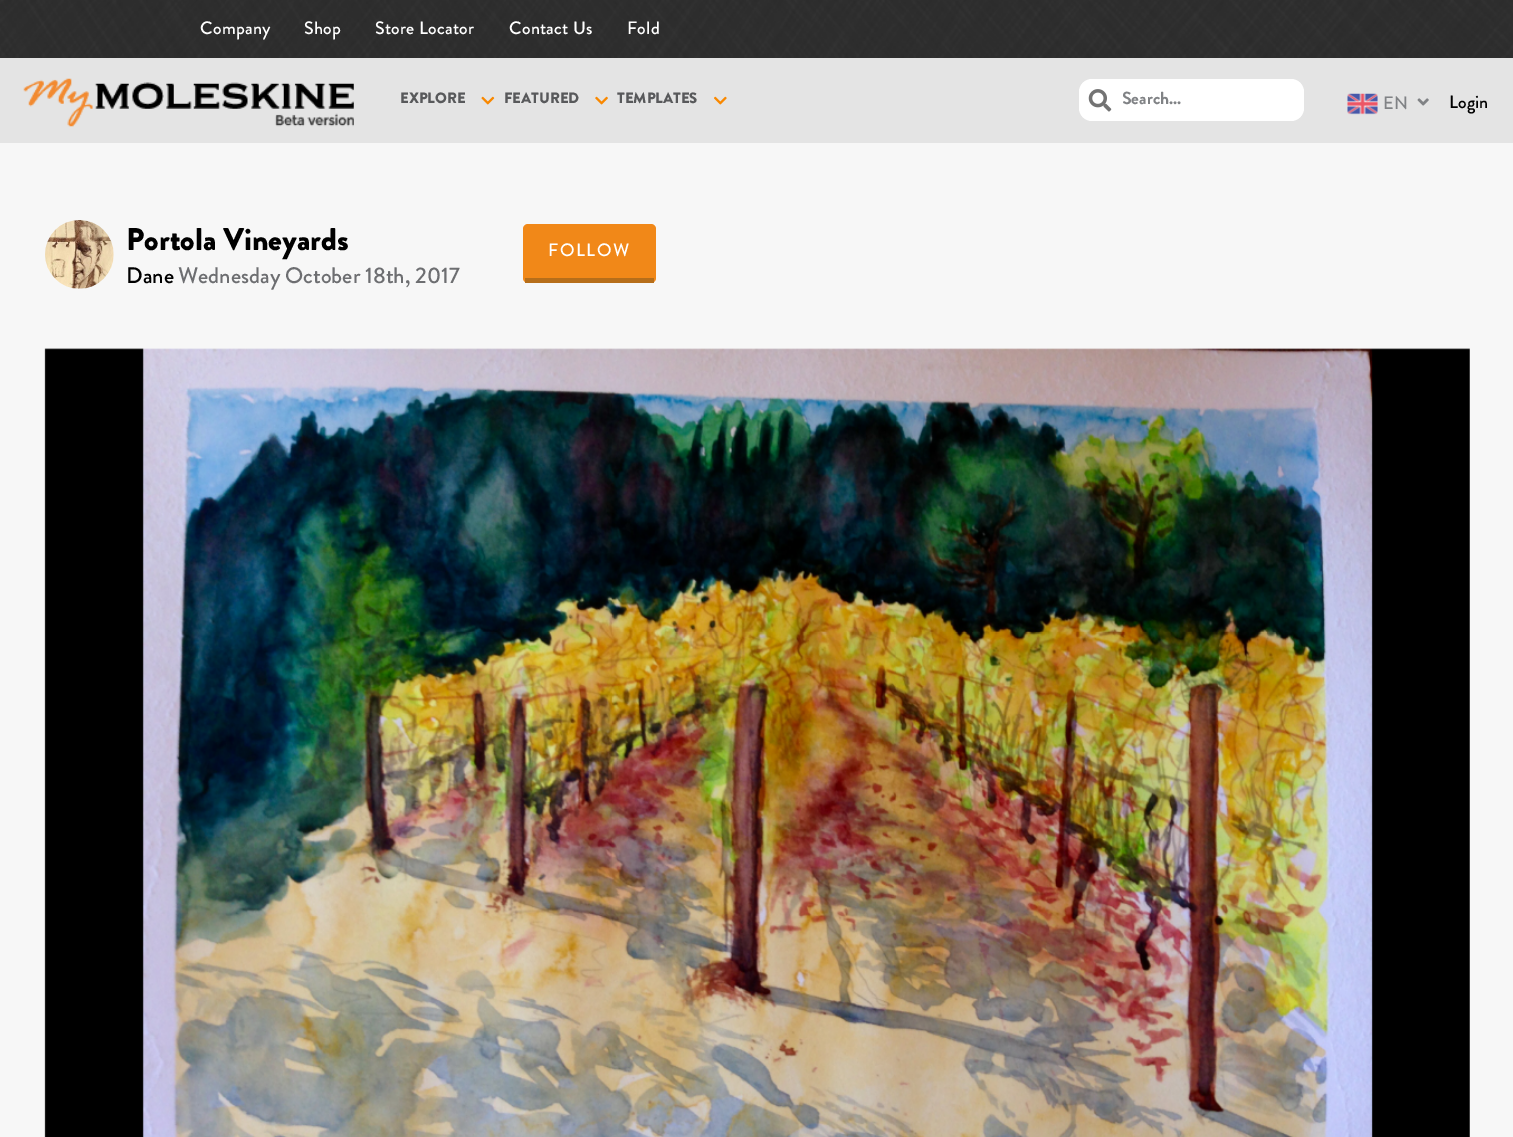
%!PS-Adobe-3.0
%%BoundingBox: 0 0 1513 1137
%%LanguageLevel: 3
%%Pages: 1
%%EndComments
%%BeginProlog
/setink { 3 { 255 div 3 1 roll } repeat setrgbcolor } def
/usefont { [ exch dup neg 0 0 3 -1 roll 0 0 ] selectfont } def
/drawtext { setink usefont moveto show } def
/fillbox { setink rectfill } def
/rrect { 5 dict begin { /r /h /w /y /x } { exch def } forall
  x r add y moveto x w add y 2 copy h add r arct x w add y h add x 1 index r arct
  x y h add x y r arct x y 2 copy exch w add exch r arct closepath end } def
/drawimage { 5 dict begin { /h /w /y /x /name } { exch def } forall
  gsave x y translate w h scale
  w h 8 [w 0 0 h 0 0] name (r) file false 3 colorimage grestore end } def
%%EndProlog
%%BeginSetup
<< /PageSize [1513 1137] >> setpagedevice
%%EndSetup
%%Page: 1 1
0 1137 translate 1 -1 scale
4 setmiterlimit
0 0 1513 1137 247 247 247 fillbox
0 58 1513 85 228 228 228 fillbox
(assets/img1.rgb) 0 0 1513 58 drawimage
/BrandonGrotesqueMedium-Medium 18 usefont
255 255 255 setink
200 34 moveto 0.25 0 (Company) ashow
304 34 moveto 0.25 0 (Shop) ashow
375 34 moveto 0.25 0 (Store Locator) ashow
509 34 moveto 0.25 0 (Contact Us) ashow
627 34 moveto 0.25 0 (Fold) ashow
(assets/img2.rgb) 23 78 331 49 drawimage
(EXPLORE) 400 103 /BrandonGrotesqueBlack-Black 15 88 89 91 drawtext
(assets/img3.rgb) 481 96 14 9 drawimage
(FEATURED) 504 103 /BrandonGrotesqueBlack-Black 15 88 89 91 drawtext
(assets/img4.rgb) 595 96 13 9 drawimage
(TEMPLATES) 617 103 /BrandonGrotesqueBlack-Black 15 88 89 91 drawtext
(assets/img5.rgb) 714 96 13 9 drawimage
255 255 255 setink
1079 79 225 42 13 rrect fill
(assets/img6.rgb) 1088 89 24 23 drawimage
(Search...) 1122 104 /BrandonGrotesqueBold-Bold 17.5 128 130 133 drawtext
(assets/img7.rgb) 1347 93 31 22 drawimage
(EN) 1383 109 /BrandonGrotesqueMedium-Medium 18 128 130 133 drawtext
(assets/img8.rgb) 1417 98 12 8 drawimage
(Login) 1449 108 /BrandonGrotesqueMedium-Medium 18 0 0 0 drawtext
(assets/img9.rgb) 45 220 69 69 drawimage
(Portola Vineyards) 126 250 /BrandonGrotesqueBlack-Black 31.25 0 0 0 drawtext
(Dane) 126 283 /BrandonGrotesqueMedium-Medium 22.5 0 0 0 drawtext
(Wednesday October 18th, 2017) 178 283 /BrandonGrotesqueMedium-Medium 22.5 109 110 113 drawtext
241 136 24 setink
523 224 133 59 5 rrect fill
525 278 129 5 182 110 26 fillbox
/BrandonGrotesqueMedium-Medium 18 usefont
255 255 255 setink
548 256 moveto 1.5 0 (FOLLOW) ashow
(assets/img10.rgb) 44 348 1426 789 drawimage
showpage
%%EOF
